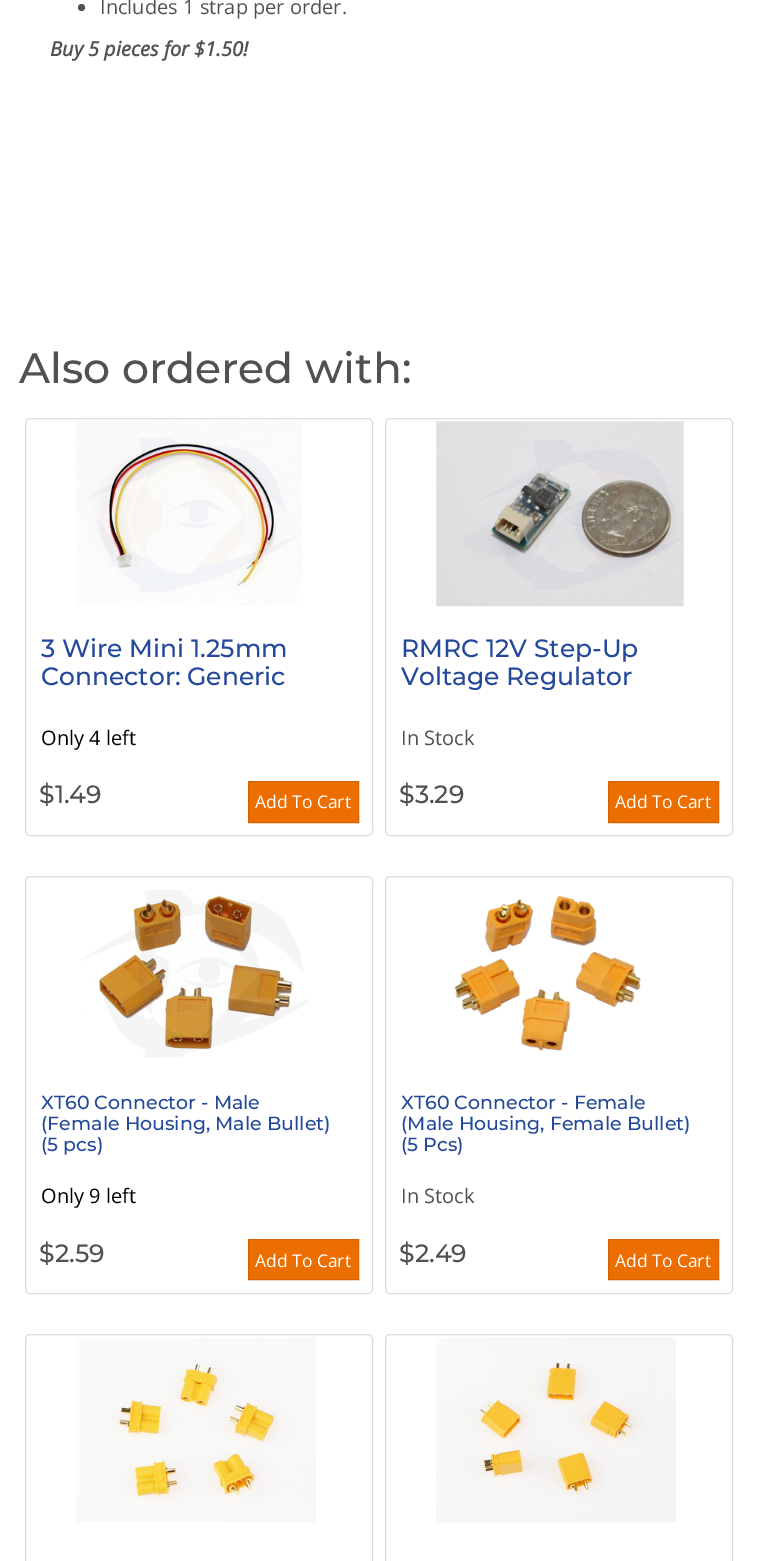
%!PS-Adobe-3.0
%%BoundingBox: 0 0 757 1561
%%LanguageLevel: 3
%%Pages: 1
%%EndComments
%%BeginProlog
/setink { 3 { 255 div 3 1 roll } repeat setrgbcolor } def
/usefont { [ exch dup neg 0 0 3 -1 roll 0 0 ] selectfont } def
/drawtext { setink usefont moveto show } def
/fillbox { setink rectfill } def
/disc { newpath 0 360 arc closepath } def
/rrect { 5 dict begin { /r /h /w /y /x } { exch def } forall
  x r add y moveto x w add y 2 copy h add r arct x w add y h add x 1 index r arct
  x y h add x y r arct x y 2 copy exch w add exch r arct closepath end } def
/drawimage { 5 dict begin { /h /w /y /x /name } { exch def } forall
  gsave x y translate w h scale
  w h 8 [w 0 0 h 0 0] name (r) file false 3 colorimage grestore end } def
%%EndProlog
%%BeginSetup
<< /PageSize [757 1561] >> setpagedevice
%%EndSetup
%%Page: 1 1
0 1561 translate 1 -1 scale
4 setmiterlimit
0 0 757 1561 255 255 255 fillbox
81 81 81 setink
81.5 7.5 3.5 disc fill
(Includes 1 strap per order.) 100 14 /OpenSans-Regular 20 81 81 81 drawtext
(Buy 5 pieces for $1.50!) 50 56 /OpenSans-BoldItalic 20 81 81 81 drawtext
(Also ordered with:) 19 383 /Montserrat-Medium 42.5 81 81 81 drawtext
221 221 221 setink
25.5 418.5 347 417 4.5 rrect stroke
(assets/img1.rgb) 76 421 227 185 drawimage
(3 Wire Mini 1.25mm) 41 657 /Montserrat-Medium 25 36 73 155 drawtext
(Connector: Generic) 41 685 /Montserrat-Medium 25 36 73 155 drawtext
(Only 4 left) 41 745 /OpenSans-Regular 20 0 0 0 drawtext
($1.49) 39 803 /Montserrat-Medium 25 81 81 81 drawtext
237 110 0 setink
248.5 781.5 moveto 358.5 781.5 lineto 358.5 822.5 lineto 248.5 822.5 lineto closepath gsave fill grestore
212 98 0 setink
stroke
(Add To Cart) 255 808 /OpenSans-Regular 17.5 255 255 255 drawtext
221 221 221 setink
385.5 418.5 347 417 4.5 rrect stroke
(assets/img2.rgb) 436 421 248 186 drawimage
(RMRC 12V Step-Up) 401 657 /Montserrat-Medium 25 36 73 155 drawtext
(Voltage Regulator) 401 685 /Montserrat-Medium 25 36 73 155 drawtext
(In Stock) 401 745 /OpenSans-Regular 20 81 81 81 drawtext
($3.29) 399 803 /Montserrat-Medium 25 81 81 81 drawtext
237 110 0 setink
608.5 781.5 moveto 718.5 781.5 lineto 718.5 822.5 lineto 608.5 822.5 lineto closepath gsave fill grestore
212 98 0 setink
stroke
(Add To Cart) 615 808 /OpenSans-Regular 17.5 255 255 255 drawtext
221 221 221 setink
25.5 876.5 347 417 4.5 rrect stroke
(assets/img3.rgb) 79 889 230 169 drawimage
(XT60 Connector - Male) 41 1109 /Montserrat-Medium 19 36 73 155 drawtext
(\(Female Housing, Male Bullet\)) 41 1130 /Montserrat-Medium 19 36 73 155 drawtext
(\(5 pcs\)) 41 1151 /Montserrat-Medium 19 36 73 155 drawtext
(Only 9 left) 41 1203 /OpenSans-Regular 20 0 0 0 drawtext
($2.59) 39 1262 /Montserrat-Medium 25 81 81 81 drawtext
237 110 0 setink
248.5 1239.5 moveto 358.5 1239.5 lineto 358.5 1279.5 lineto 248.5 1279.5 lineto closepath gsave fill grestore
212 98 0 setink
stroke
(Add To Cart) 255 1267 /OpenSans-Regular 17.5 255 255 255 drawtext
221 221 221 setink
385.5 876.5 347 417 4.5 rrect stroke
(assets/img4.rgb) 454 895 187 156 drawimage
(XT60 Connector - Female) 401 1109 /Montserrat-Medium 19 36 73 155 drawtext
(\(Male Housing, Female Bullet\)) 401 1130 /Montserrat-Medium 19 36 73 155 drawtext
(\(5 Pcs\)) 401 1151 /Montserrat-Medium 19 36 73 155 drawtext
(In Stock) 401 1203 /OpenSans-Regular 20 81 81 81 drawtext
($2.49) 399 1262 /Montserrat-Medium 25 81 81 81 drawtext
237 110 0 setink
608.5 1239.5 moveto 718.5 1239.5 lineto 718.5 1279.5 lineto 608.5 1279.5 lineto closepath gsave fill grestore
212 98 0 setink
stroke
(Add To Cart) 615 1267 /OpenSans-Regular 17.5 255 255 255 drawtext
221 221 221 setink
25.5 1334.5 347 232 4.5 rrect stroke
(assets/img5.rgb) 76 1337 240 186 drawimage
385.5 1334.5 347 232 4.5 rrect stroke
(assets/img6.rgb) 436 1337 240 186 drawimage
showpage
%%EOF
